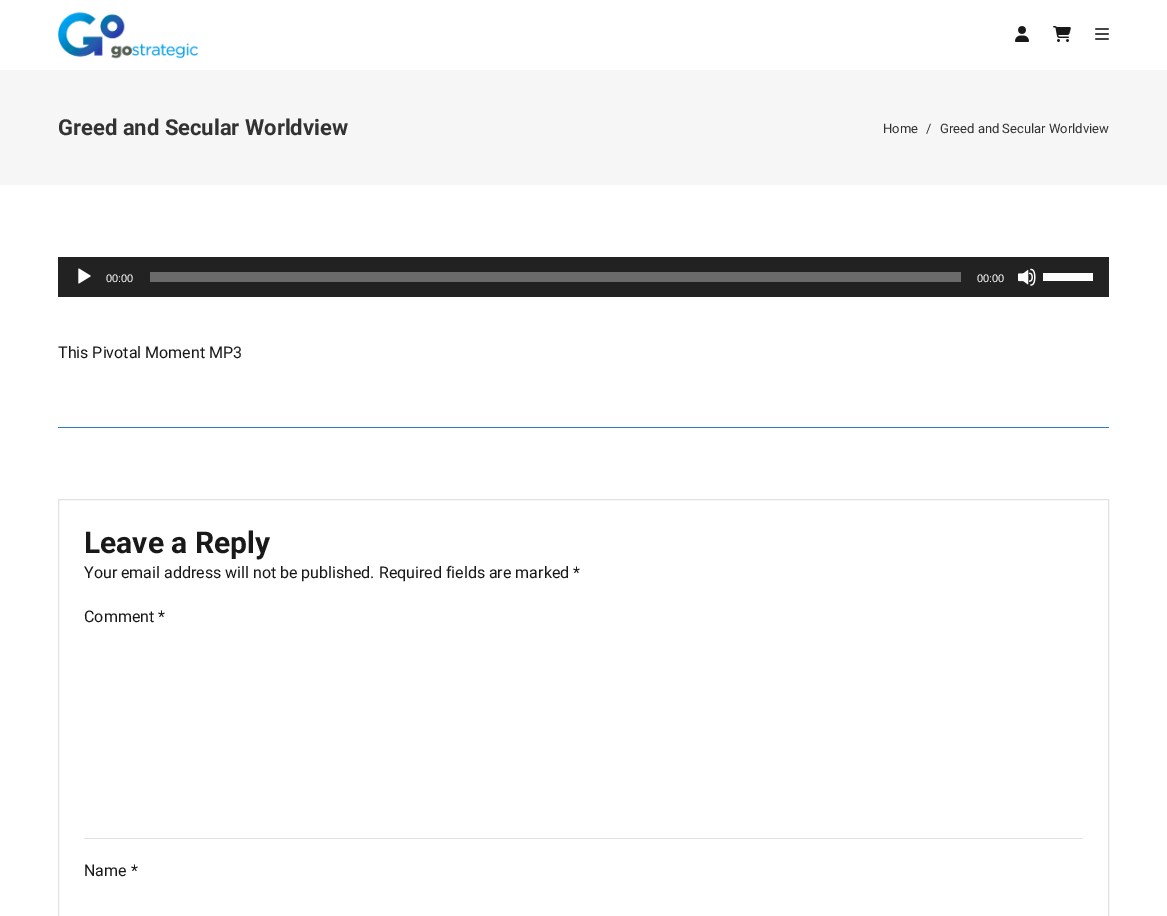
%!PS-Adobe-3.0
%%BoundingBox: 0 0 1167 916
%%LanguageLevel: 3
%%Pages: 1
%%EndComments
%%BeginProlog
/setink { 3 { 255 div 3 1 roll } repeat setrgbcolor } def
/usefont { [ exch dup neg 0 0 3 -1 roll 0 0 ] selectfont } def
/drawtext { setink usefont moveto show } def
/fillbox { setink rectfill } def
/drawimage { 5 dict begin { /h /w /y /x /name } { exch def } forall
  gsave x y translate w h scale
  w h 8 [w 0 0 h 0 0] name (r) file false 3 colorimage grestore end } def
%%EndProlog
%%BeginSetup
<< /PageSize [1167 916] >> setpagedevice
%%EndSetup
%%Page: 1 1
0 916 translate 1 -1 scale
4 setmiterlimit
0 0 1167 916 255 255 255 fillbox
(assets/img1.rgb) 58 12 140 47 drawimage
(assets/img2.rgb) 1015 26 14 16 drawimage
(assets/img3.rgb) 1053 26 18 16 drawimage
(assets/img4.rgb) 1095 28 14 12 drawimage
0 70 1167 115 246 246 246 fillbox
(Greed and Secular Worldview) 58 135 /Roboto-Bold 22 51 51 51 drawtext
(Home) 883 133 /Roboto-Regular 13 51 51 51 drawtext
(/) 926 133 /Roboto-Regular 13 51 51 51 drawtext
(Greed and Secular Worldview) 940 133 /Roboto-Regular 13 51 51 51 drawtext
58 257 1051 40 34 34 34 fillbox
(assets/img5.rgb) 78 268 13 16 drawimage
(00:00) 106 282 /LiberationSans-Regular 11 255 255 255 drawtext
150 272 811 10 107 107 107 fillbox
(00:00) 977 282 /LiberationSans-Regular 11 255 255 255 drawtext
(assets/img6.rgb) 1018 268 18 18 drawimage
1043 273 50 8 255 255 255 fillbox
(This Pivotal Moment MP3) 58 358 /Roboto-Regular 16 25 25 25 drawtext
58 427 1051 1 41 128 185 fillbox
225 225 225 setink
58.5 499.5 1050 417 rectstroke
(Leave a Reply) 84 553 /Roboto-Bold 30 25 25 25 drawtext
(Your email address will not be published. Required fields are marked *) 84 578 /Roboto-Regular 16 25 25 25 drawtext
(Comment *) 84 622 /Roboto-Regular 16 25 25 25 drawtext
84 838 999 1 225 225 225 fillbox
(Name *) 84 876 /Roboto-Regular 16 25 25 25 drawtext
showpage
%%EOF
